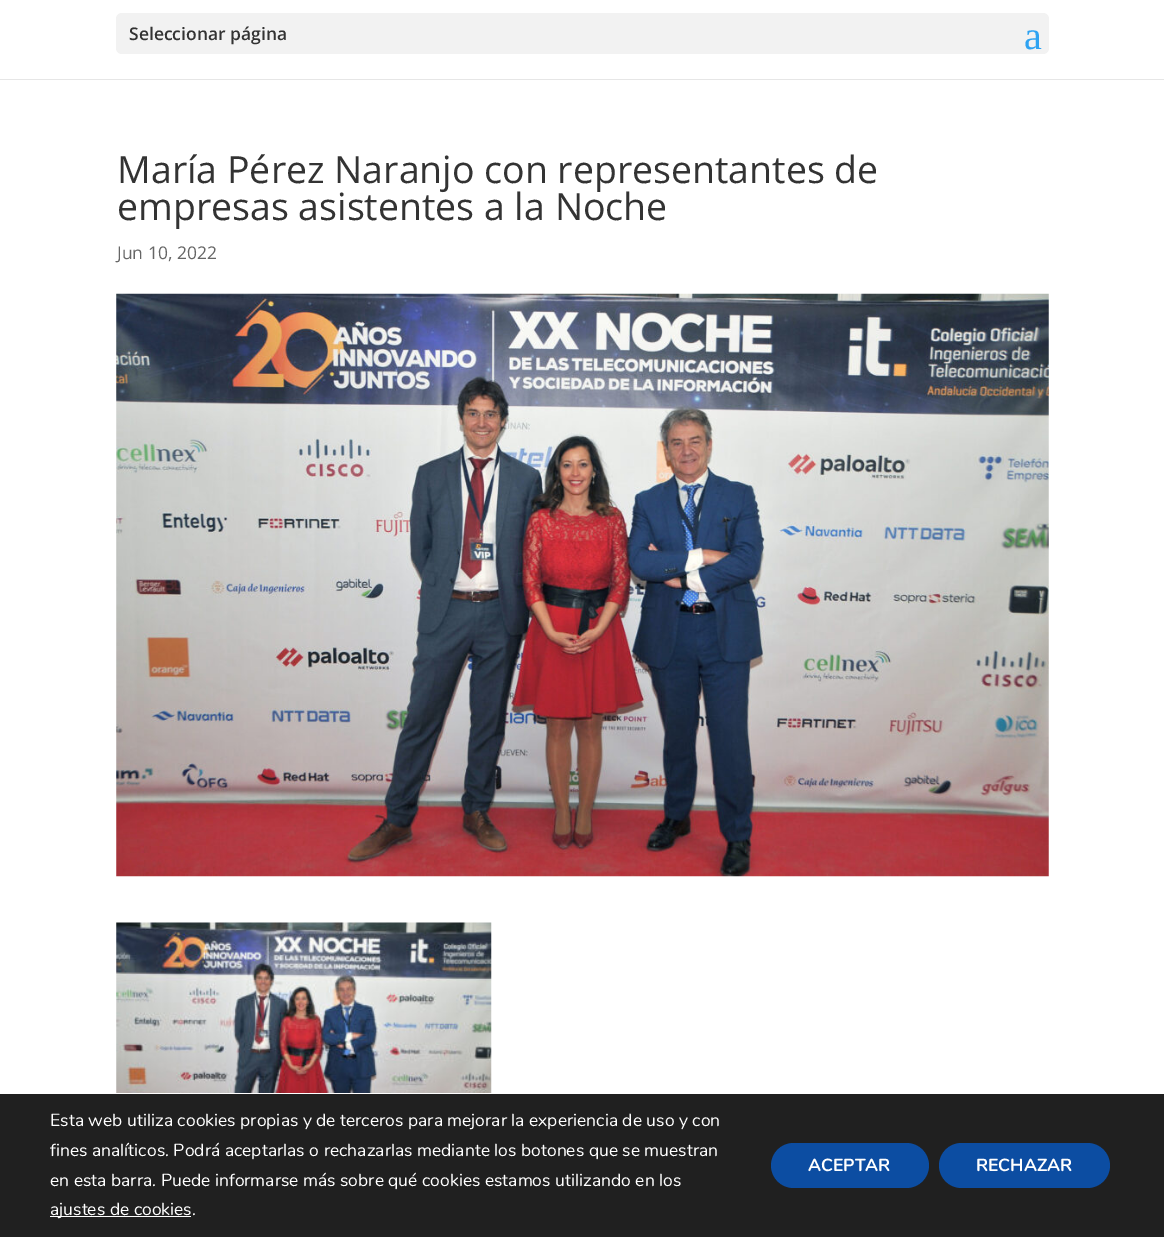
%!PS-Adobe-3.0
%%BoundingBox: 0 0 1164 1237
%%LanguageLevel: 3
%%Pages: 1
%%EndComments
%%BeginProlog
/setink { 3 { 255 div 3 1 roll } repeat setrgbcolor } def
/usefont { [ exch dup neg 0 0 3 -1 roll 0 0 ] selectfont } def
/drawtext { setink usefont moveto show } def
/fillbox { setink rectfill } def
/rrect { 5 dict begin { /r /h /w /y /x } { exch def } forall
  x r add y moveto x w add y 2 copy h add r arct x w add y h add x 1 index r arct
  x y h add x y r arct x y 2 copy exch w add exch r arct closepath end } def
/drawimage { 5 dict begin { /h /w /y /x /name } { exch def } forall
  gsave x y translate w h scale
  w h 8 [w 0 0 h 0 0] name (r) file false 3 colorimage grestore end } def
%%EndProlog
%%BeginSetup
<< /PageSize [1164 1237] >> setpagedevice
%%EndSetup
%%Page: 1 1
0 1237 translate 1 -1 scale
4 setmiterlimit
0 0 1164 1237 255 255 255 fillbox
0 79 1164 1 230 230 230 fillbox
242 242 242 setink
116 13 933 41 6 rrect fill
(Seleccionar página) 129 40 /OpenSans-SemiBold 17.5 51 51 51 drawtext
(a) 1024 49 /LiberationSerif-Regular 40 46 163 242 drawtext
(María Pérez Naranjo con representantes de) 117 183 /OpenSans-Regular 37.5 51 51 51 drawtext
(empresas asistentes a la Noche) 117 220 /OpenSans-Regular 37.5 51 51 51 drawtext
(Jun 10, 2022) 117 259 /OpenSans-Regular 17.5 102 102 102 drawtext
(assets/img1.rgb) 116 293 933 584 drawimage
(assets/img2.rgb) 116 922 376 171 drawimage
0 1094 1164 143 32 32 32 fillbox
(Esta web utiliza cookies propias y de terceros para mejorar la experiencia de uso y con) 50 1126 /Nunito-Regular 17.5 255 255 255 drawtext
(fines analíticos. Podrá aceptarlas o rechazarlas mediante los botones que se muestran) 50 1156 /Nunito-Regular 17.5 255 255 255 drawtext
(en esta barra. Puede informarse más sobre qué cookies estamos utilizando en los) 50 1186 /Nunito-Regular 17.5 255 255 255 drawtext
50 1216 141 1 255 255 255 fillbox
(ajustes de cookies.) 50 1215 /Nunito-Regular 17.5 255 255 255 drawtext
12 77 162 setink
771 1143 158 45 22.5 rrect fill
(ACEPTAR) 808 1171 /Nunito-Bold 17.5 255 255 255 drawtext
12 77 162 setink
939 1143 171 45 22.5 rrect fill
(RECHAZAR) 976 1171 /Nunito-Bold 17.5 255 255 255 drawtext
showpage
%%EOF
